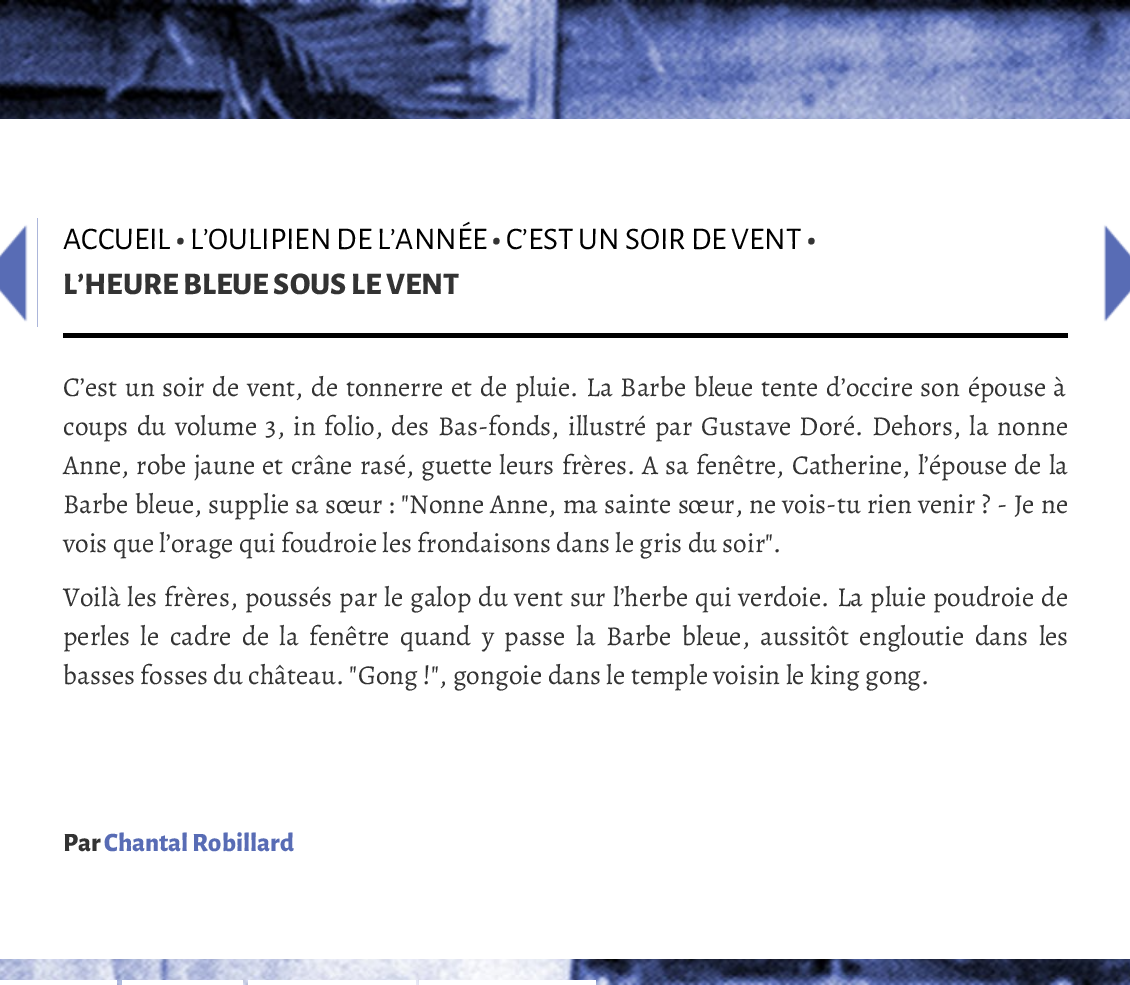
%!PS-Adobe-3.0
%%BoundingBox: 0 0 1130 985
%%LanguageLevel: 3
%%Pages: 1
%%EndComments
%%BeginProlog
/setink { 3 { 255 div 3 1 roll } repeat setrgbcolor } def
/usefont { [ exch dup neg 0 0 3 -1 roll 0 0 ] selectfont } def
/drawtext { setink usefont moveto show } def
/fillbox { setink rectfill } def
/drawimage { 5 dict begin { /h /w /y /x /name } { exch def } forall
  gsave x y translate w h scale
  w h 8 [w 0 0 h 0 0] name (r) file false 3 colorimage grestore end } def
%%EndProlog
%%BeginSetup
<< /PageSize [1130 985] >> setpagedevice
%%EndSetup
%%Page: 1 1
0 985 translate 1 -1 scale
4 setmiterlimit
0 0 1130 985 255 255 255 fillbox
(assets/img1.rgb) 0 0 1130 985 drawimage
0 119 1130 840 255 255 255 fillbox
0 218 38 109 88 108 181 fillbox
(assets/img2.rgb) 0 218 38 109 drawimage
1103 224 27 98 88 108 181 fillbox
(assets/img3.rgb) 1094 218 36 109 drawimage
63 333 1005 5 0 0 0 fillbox
(ACCUEIL) 63 249 /AlegreyaSans-Regular 31.5 0 0 0 drawtext
(•) 176 249 /AlegreyaSans-ExtraBold 31.5 51 51 51 drawtext
(L’OULIPIEN DE L’ANNÉE) 190 249 /AlegreyaSans-Regular 31.5 0 0 0 drawtext
(•) 492 249 /AlegreyaSans-ExtraBold 31.5 51 51 51 drawtext
(C’EST UN SOIR DE VENT) 506 249 /AlegreyaSans-Regular 31.5 0 0 0 drawtext
(•) 807 249 /AlegreyaSans-ExtraBold 31.5 51 51 51 drawtext
(L’HEURE BLEUE SOUS LE VENT) 63 294 /AlegreyaSans-ExtraBold 31.5 51 51 51 drawtext
/Alegreya-Regular 27.3 usefont
63 396 moveto 2.25 0 32 (C’est un soir de vent, de tonnerre et de pluie. La Barbe bleue tente d’occire son épouse à) widthshow
63 435 moveto 3.1 0 32 (coups du volume 3, in folio, des Bas-fonds, illustré par Gustave Doré. Dehors, la nonne) widthshow
63 474 moveto 1.75 0 32 (Anne, robe jaune et crâne rasé, guette leurs frères. A sa fenêtre, Catherine, l’épouse de la) widthshow
63 513 moveto 0.6 0 32 (Barbe bleue, supplie sa sœur : "Nonne Anne, ma sainte sœur, ne vois-tu rien venir ? - Je ne) widthshow
(vois que l’orage qui foudroie les frondaisons dans le gris du soir".) 63 552 /Alegreya-Regular 27.3 51 51 51 drawtext
63 606 moveto 1.6 0 32 (Voilà les frères, poussés par le galop du vent sur l’herbe qui verdoie. La pluie poudroie de) widthshow
63 645 moveto 5.1 0 32 (perles le cadre de la fenêtre quand y passe la Barbe bleue, aussitôt engloutie dans les) widthshow
(basses fosses du château. "Gong !", gongoie dans le temple voisin le king gong.) 63 684 /Alegreya-Regular 27.3 51 51 51 drawtext
(Par) 63 851 /AlegreyaSans-ExtraBold 26.5 51 51 51 drawtext
(Chantal Robillard) 104 851 /AlegreyaSans-ExtraBold 26.5 88 108 181 drawtext
0 980 117 5 255 255 255 fillbox
122 980 121 5 255 255 255 fillbox
248 980 168 5 255 255 255 fillbox
419 980 177 5 255 255 255 fillbox
showpage
%%EOF
